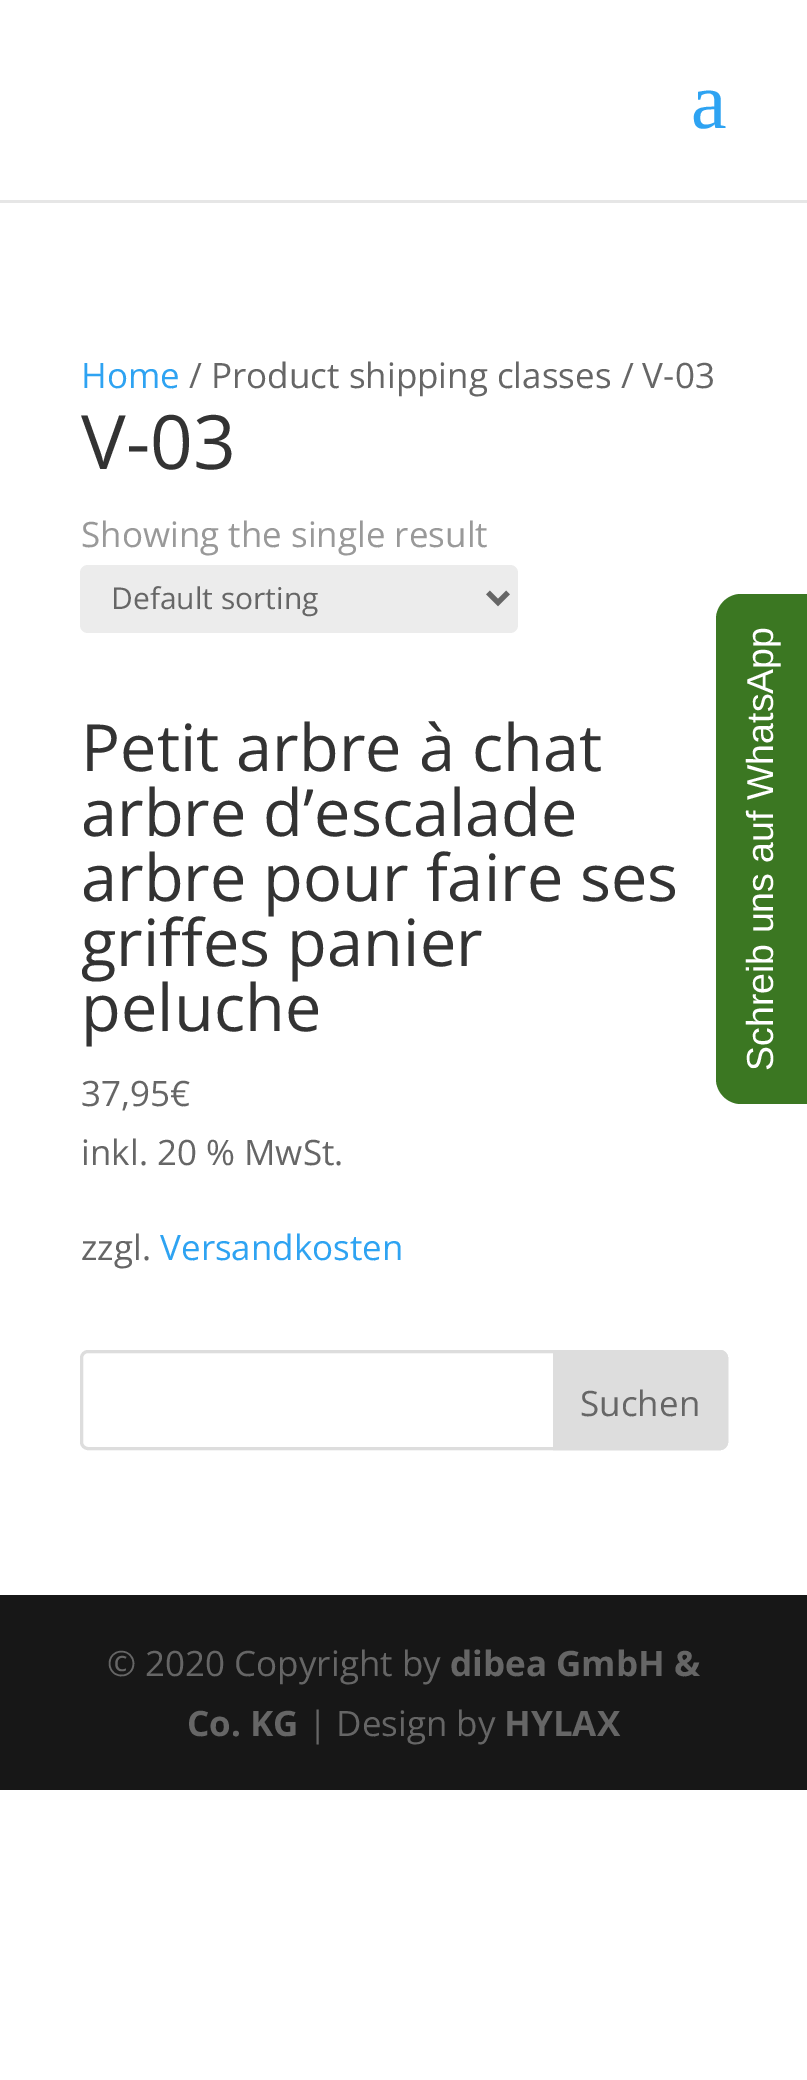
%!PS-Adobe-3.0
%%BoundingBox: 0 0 807 2080
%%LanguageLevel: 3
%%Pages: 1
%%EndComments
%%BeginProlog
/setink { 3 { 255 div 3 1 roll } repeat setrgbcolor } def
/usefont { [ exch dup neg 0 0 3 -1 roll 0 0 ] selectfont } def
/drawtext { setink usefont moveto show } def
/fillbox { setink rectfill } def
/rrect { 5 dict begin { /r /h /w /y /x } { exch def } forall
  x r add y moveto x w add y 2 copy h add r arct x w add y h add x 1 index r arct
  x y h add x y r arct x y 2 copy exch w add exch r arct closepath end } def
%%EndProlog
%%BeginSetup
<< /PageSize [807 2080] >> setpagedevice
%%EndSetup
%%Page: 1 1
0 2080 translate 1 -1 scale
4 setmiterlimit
0 0 807 2080 255 255 255 fillbox
230 230 230 setink
0 200 moveto 0 203 lineto 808 203 lineto 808 3 lineto 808 200 lineto closepath fill
(a) 691 128 /LiberationSerif-Regular 80 46 163 242 drawtext
(Home) 81 388 /OpenSans-Regular 35 46 163 242 drawtext
(/ Product shipping classes / V-03) 189 388 /OpenSans-Regular 35 102 102 102 drawtext
(V-03) 81 469 /OpenSans-Regular 75 51 51 51 drawtext
(Showing the single result) 81 547 /OpenSans-Regular 35 153 153 153 drawtext
236 236 236 setink
80 565 438 68 8 rrect fill
102 102 102 setink
5 setlinewidth
488 592.5 moveto 498 602.5 lineto 508 592.5 lineto stroke
(Default sorting) 111 609 /OpenSans-Regular 30 102 102 102 drawtext
(Petit arbre à chat) 81 771 /OpenSans-Regular 65 51 51 51 drawtext
(arbre d’escalade) 81 836 /OpenSans-Regular 65 51 51 51 drawtext
(arbre pour faire ses) 81 901 /OpenSans-Regular 65 51 51 51 drawtext
(griffes panier) 81 966 /OpenSans-Regular 65 51 51 51 drawtext
(peluche) 81 1031 /OpenSans-Regular 65 51 51 51 drawtext
(37,95€) 81 1106 /OpenSans-Regular 35 102 102 102 drawtext
(inkl. 20 % MwSt.) 81 1165 /OpenSans-Regular 35 102 102 102 drawtext
(zzgl.) 81 1260 /OpenSans-Regular 35 102 102 102 drawtext
(Versandkosten) 160 1260 /OpenSans-Regular 35 46 163 242 drawtext
221 221 221 setink
3 setlinewidth
81.5 1351.5 645 97 6.5 rrect stroke
554.5 1351.5 moveto 720 1351.5 lineto 723.5 1351.5 726.5 1354.5 726.5 1358 curveto 726.5 1442 lineto 726.5 1445.5 723.5 1448.5 720 1448.5 curveto 554.5 1448.5 lineto closepath gsave fill grestore
stroke
(Suchen) 580 1416 /OpenSans-Regular 35 102 102 102 drawtext
0 1595 807 195 23 23 23 fillbox
(© 2020 Copyright by) 107 1676 /OpenSans-Regular 35 102 102 102 drawtext
(dibea GmbH &) 450 1676 /OpenSans-Bold 35 102 102 102 drawtext
(Co. KG) 187 1736 /OpenSans-Bold 35 102 102 102 drawtext
(| Design by) 308 1736 /OpenSans-Regular 35 102 102 102 drawtext
(HYLAX) 504 1736 /OpenSans-Bold 35 102 102 102 drawtext
59 119 34 setink
716 1079 moveto 716 619 lineto 716 606 727 594 741 594 curveto 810 594 lineto 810 1104 lineto 741 1104 lineto 727 1104 716 1092 716 1079 curveto closepath fill
/LiberationSans-Regular 37.5 usefont
255 255 255 setink
gsave 773 1071 translate -90 rotate 0 0 moveto (Schreib uns auf WhatsApp) show grestore
showpage
%%EOF
